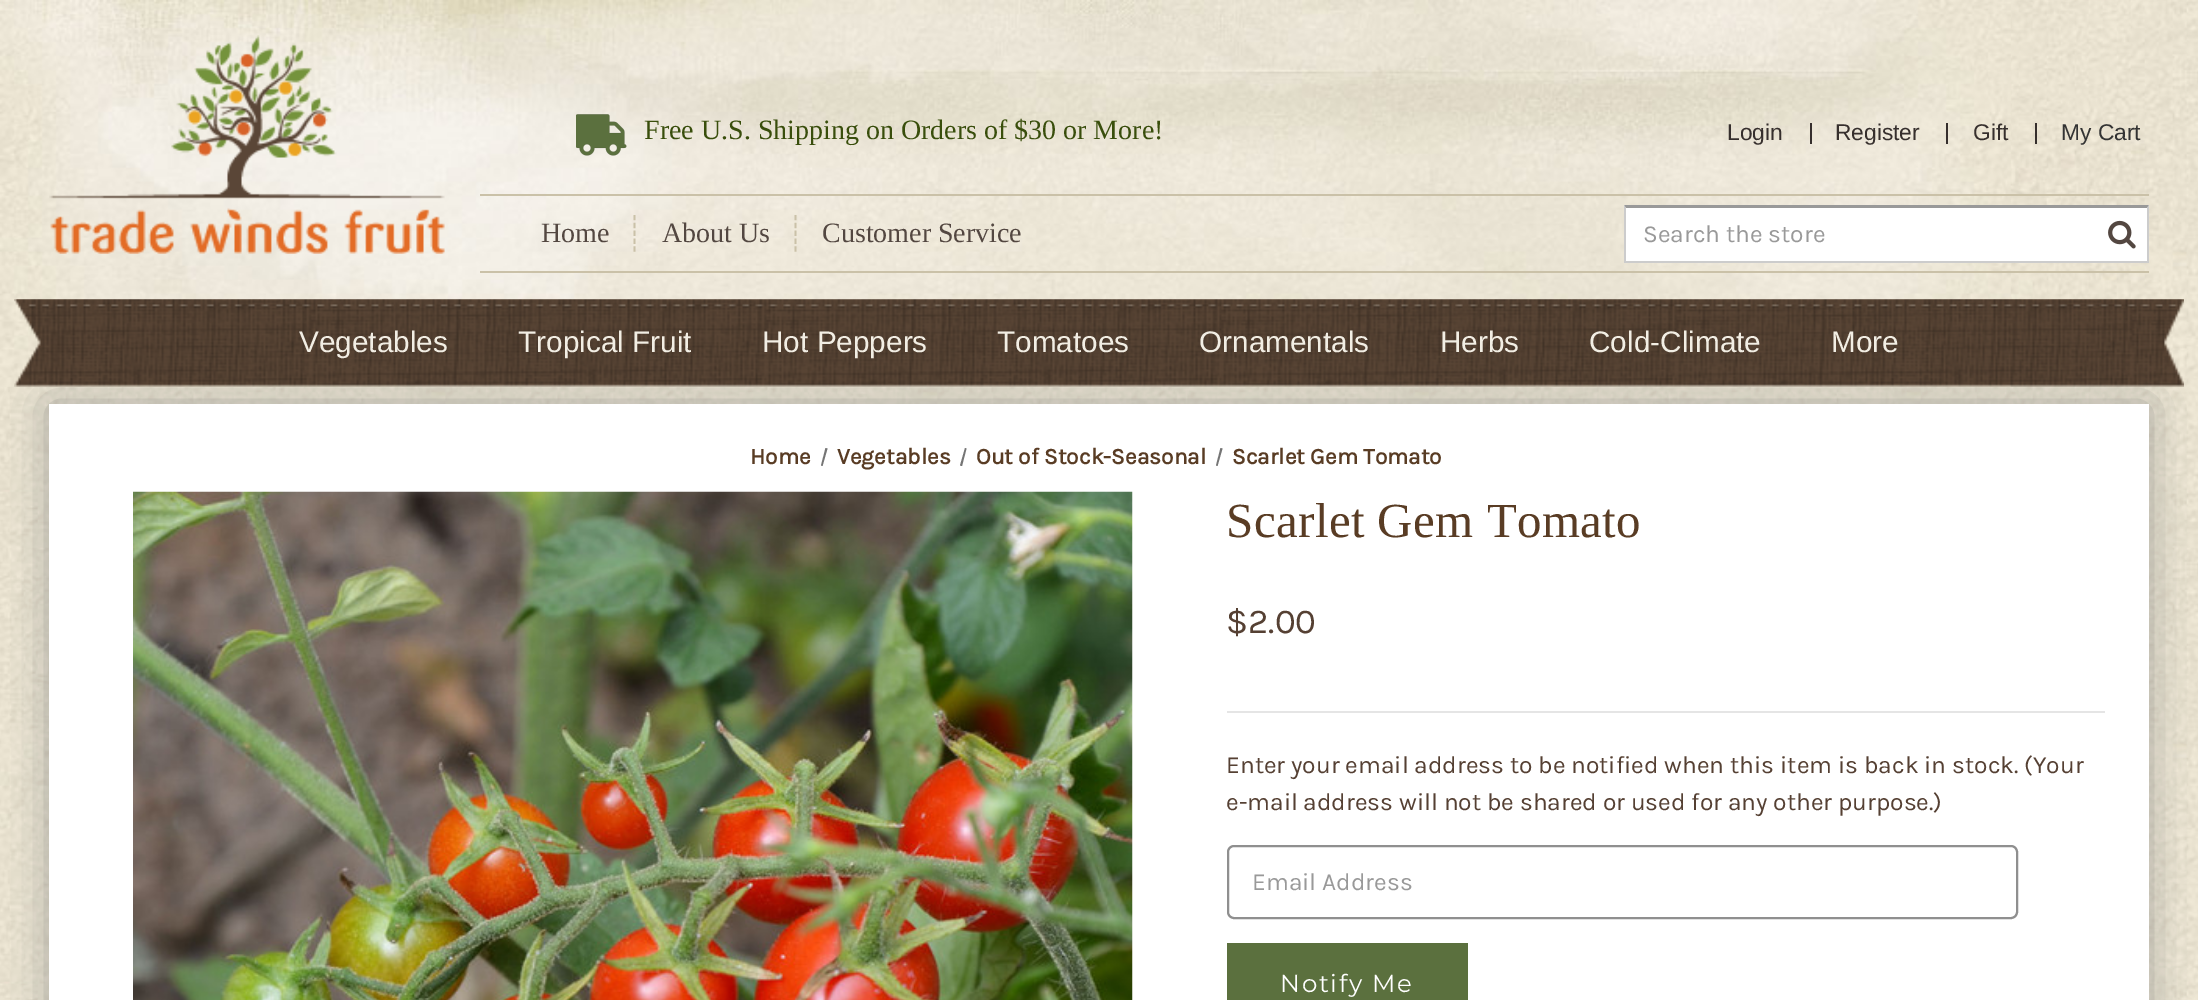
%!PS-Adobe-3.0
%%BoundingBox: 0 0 2198 1000
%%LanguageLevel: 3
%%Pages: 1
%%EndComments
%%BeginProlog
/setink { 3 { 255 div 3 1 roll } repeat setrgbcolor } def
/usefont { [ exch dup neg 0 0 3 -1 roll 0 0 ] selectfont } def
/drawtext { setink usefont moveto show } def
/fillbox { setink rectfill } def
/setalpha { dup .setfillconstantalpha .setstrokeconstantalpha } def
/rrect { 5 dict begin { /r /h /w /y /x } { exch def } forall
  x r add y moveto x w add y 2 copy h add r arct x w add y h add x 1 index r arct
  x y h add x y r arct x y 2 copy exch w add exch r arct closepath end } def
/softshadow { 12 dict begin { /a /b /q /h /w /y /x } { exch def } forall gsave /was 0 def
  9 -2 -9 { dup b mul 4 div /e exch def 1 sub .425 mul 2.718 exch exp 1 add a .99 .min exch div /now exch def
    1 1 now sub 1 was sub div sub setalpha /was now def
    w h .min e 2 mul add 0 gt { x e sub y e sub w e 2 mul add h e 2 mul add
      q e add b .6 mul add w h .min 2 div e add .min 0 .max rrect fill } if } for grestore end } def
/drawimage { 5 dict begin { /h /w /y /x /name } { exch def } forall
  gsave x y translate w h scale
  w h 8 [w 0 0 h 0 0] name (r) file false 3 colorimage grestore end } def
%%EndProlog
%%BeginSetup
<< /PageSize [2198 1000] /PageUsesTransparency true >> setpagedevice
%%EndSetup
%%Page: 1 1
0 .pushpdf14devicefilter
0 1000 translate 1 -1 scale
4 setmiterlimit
0 0 2198 1000 255 255 255 fillbox
(assets/img1.rgb) 0 0 2198 1000 drawimage
119 119 119 setink
49 404 2100 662 0 22 0.6 softshadow
(assets/img2.rgb) 0 0 2011 387 drawimage
(assets/img3.rgb) 49 35 396 219 drawimage
(assets/img4.rgb) 576 114 51 42 drawimage
(Free U.S. Shipping on Orders of $30 or More!) 644 139 /LiberationSerif-Regular 28 57 78 12 drawtext
(Login) 1727 140 /LiberationSans-Regular 22.75 54 47 45 drawtext
1810 123 2 21 54 47 45 fillbox
(Register) 1835 140 /LiberationSans-Regular 22.75 54 47 45 drawtext
1946 123 2 21 54 47 45 fillbox
(Gift) 1973 140 /LiberationSans-Regular 22.75 54 47 45 drawtext
2035 123 2 21 54 47 45 fillbox
(My Cart) 2061 140 /LiberationSans-Regular 22.75 51 51 51 drawtext
480 194 1669 2 202 193 168 fillbox
480 271 1669 2 202 193 168 fillbox
(Home) 541 242 /LiberationSerif-Regular 28 83 71 65 drawtext
202 193 168 setink
1.8 setlinewidth
[5.25 2.62] 0 setdash
634.5 215 moveto 634.5 252 lineto stroke
(About Us) 662 242 /LiberationSerif-Regular 28 83 71 65 drawtext
202 193 168 setink
795.5 215 moveto 795.5 252 lineto stroke
(Customer Service) 822 242 /LiberationSerif-Regular 28 83 71 65 drawtext
153 153 153 setink
1624 205 moveto 2149 205 lineto 2147 208 lineto 1626 208 lineto closepath fill
204 204 204 setink
2149 205 moveto 2149 262 lineto 2147 261 lineto 2147 208 lineto closepath fill
1624 261 525 2 204 204 204 fillbox
1624 262 moveto 1624 205 lineto 1626 208 lineto 1626 261 lineto closepath fill
1626 208 521 53 255 255 255 fillbox
(Search the store) 1643 242 /Karla-Regular 24.5 153 153 153 drawtext
(assets/img5.rgb) 2108 220 28 29 drawimage
(assets/img6.rgb) 14 299 2170 88 drawimage
(Vegetables) 299 352 /LiberationSans-Regular 29.75 242 238 228 drawtext
(Tropical Fruit) 518 352 /LiberationSans-Regular 29.75 242 238 228 drawtext
(Hot Peppers) 762 352 /LiberationSans-Regular 29.75 242 238 228 drawtext
(Tomatoes) 997 352 /LiberationSans-Regular 29.75 242 238 228 drawtext
(Ornamentals) 1199 352 /LiberationSans-Regular 29.75 242 238 228 drawtext
(Herbs) 1440 352 /LiberationSans-Regular 29.75 242 238 228 drawtext
(Cold-Climate) 1589 352 /LiberationSans-Regular 29.75 242 238 228 drawtext
(More) 1831 352 /LiberationSans-Regular 29.75 242 238 228 drawtext
49 404 2100 596 255 255 255 fillbox
(Home) 750 464 /Karla-Bold 22.75 89 60 36 drawtext
117 117 117 setink
825.5 448 moveto 827.5 448.5 lineto 822.5 466 lineto 821 465.5 lineto closepath fill
(Vegetables) 837 464 /Karla-Bold 22.75 89 60 36 drawtext
117 117 117 setink
965 448 moveto 966.5 448.5 lineto 962 466 lineto 960 465.5 lineto closepath fill
(Out of Stock-Seasonal) 976 464 /Karla-Bold 22.75 89 60 36 drawtext
117 117 117 setink
1220.5 448 moveto 1222.5 448.5 lineto 1217.5 466 lineto 1216 465.5 lineto closepath fill
(Scarlet Gem Tomato) 1232 464 /Karla-Bold 22.75 89 60 36 drawtext
(assets/img7.rgb) 133 491 1000 509 drawimage
1227 711 878 2 229 229 229 fillbox
/LiberationSerif-Regular 49 usefont
89 60 36 setink
1226 537 moveto 0.4 0 (Scarlet Gem Tomato) ashow
($2.00) 1226 633 /Karla-Regular 35 85 64 51 drawtext
(Enter your email address to be notified when this item is back in stock. \(Your) 1226 773 /Karla-Regular 24.5 85 64 51 drawtext
(e-mail address will not be shared or used for any other purpose.\)) 1226 810 /Karla-Regular 24.5 85 64 51 drawtext
143 143 143 setink
2 setlinewidth
[] 0 setdash
1228 846 789 72 6 rrect stroke
(Email Address) 1252 890 /Karla-Regular 24.5 153 153 153 drawtext
1227 943 241 57 91 112 62 fillbox
/Montserrat-Regular 24.5 usefont
255 255 255 setink
1280 992 moveto 1.75 0 (Notify Me) ashow
.poppdf14devicefilter showpage
%%EOF
